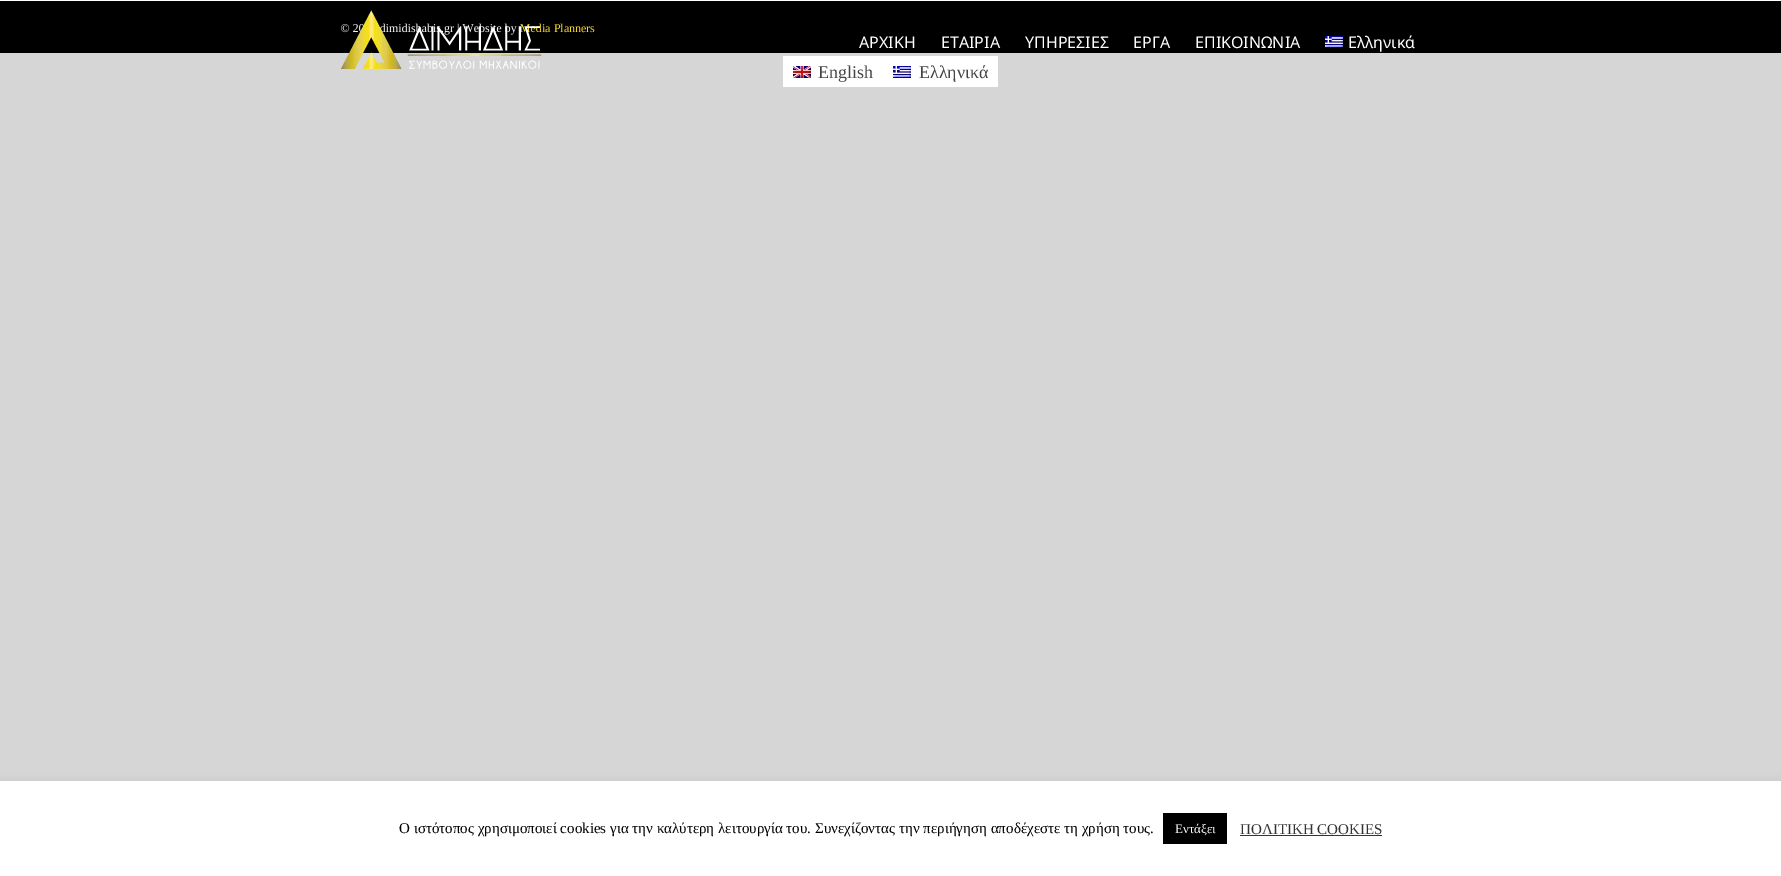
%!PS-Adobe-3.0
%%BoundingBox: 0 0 1781 876
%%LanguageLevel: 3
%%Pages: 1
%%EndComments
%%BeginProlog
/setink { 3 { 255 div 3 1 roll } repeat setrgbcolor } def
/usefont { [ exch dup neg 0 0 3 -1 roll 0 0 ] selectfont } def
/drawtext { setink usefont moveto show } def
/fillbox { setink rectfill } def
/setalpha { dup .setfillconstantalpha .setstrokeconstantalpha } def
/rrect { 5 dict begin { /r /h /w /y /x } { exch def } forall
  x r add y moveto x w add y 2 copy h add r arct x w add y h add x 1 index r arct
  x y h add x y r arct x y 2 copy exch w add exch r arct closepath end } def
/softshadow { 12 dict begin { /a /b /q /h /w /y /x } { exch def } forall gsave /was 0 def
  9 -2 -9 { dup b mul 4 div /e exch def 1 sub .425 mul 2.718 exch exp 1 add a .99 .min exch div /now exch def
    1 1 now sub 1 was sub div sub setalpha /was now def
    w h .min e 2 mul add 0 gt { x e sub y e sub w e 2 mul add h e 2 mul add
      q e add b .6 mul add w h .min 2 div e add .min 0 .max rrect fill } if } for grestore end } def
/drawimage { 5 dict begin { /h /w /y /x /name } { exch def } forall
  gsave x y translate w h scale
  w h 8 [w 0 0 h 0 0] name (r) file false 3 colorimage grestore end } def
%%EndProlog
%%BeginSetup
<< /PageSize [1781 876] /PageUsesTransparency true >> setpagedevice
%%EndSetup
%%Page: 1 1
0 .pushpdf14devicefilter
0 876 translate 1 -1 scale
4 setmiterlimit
0 0 1781 876 215 214 214 fillbox
0 0 1781 1 255 255 255 fillbox
0 1 1781 52 0 0 0 fillbox
(© 20) 341 32 /LiberationSerif-Regular 12 255 255 255 drawtext
(dimidisbabis.gr | Website by) 380 32 /LiberationSerif-Regular 12 255 255 255 drawtext
(Media Planners) 520 32 /LiberationSerif-Regular 12 244 215 42 drawtext
(assets/img1.rgb) 341 10 201 59 drawimage
(ΑΡΧΙΚΗ) 859 48 /NotoSans-Regular 16 255 255 255 drawtext
(ΕΤΑΙΡΙΑ) 941 48 /NotoSans-Regular 16 255 255 255 drawtext
(ΥΠΗΡΕΣΙΕΣ) 1025 48 /NotoSans-Regular 16 255 255 255 drawtext
(ΕΡΓΑ) 1133 48 /NotoSans-Regular 16 255 255 255 drawtext
(ΕΠΙΚΟΙΝΩΝΙΑ) 1195 48 /NotoSans-Regular 16 255 255 255 drawtext
(assets/img2.rgb) 1325 36 18 12 drawimage
(Ελληνικά) 1348 48 /NotoSans-Regular 16 255 255 255 drawtext
783 56 215 31 255 255 255 fillbox
(assets/img3.rgb) 793 66 18 12 drawimage
(English) 818 78 /LiberationSerif-Regular 18 68 68 68 drawtext
(assets/img2.rgb) 893 66 18 12 drawimage
(Ελληνικά) 919 78 /LiberationSerif-Regular 18 68 68 68 drawtext
172 171 171 setink
0 780 1781 95 0 5 0.3 softshadow
0 781 1781 95 255 255 255 fillbox
(Ο ιστότοπος χρησιμοποιεί cookies για την καλύτερη λειτουργία του. Συνεχίζοντας την περιήγηση αποδέχεστε τη χρήση τους.) 399 833 /LiberationSerif-Regular 15 0 0 0 drawtext
1163 813 64 31 0 0 0 fillbox
(Εντάξει) 1175 833 /LiberationSerif-Regular 13 255 255 255 drawtext
(ΠΟΛΙΤΙΚΗ COOKIES) 1240 834 /LiberationSerif-Regular 15 51 51 51 drawtext
1240 835 142 1 51 51 51 fillbox
.poppdf14devicefilter showpage
%%EOF
